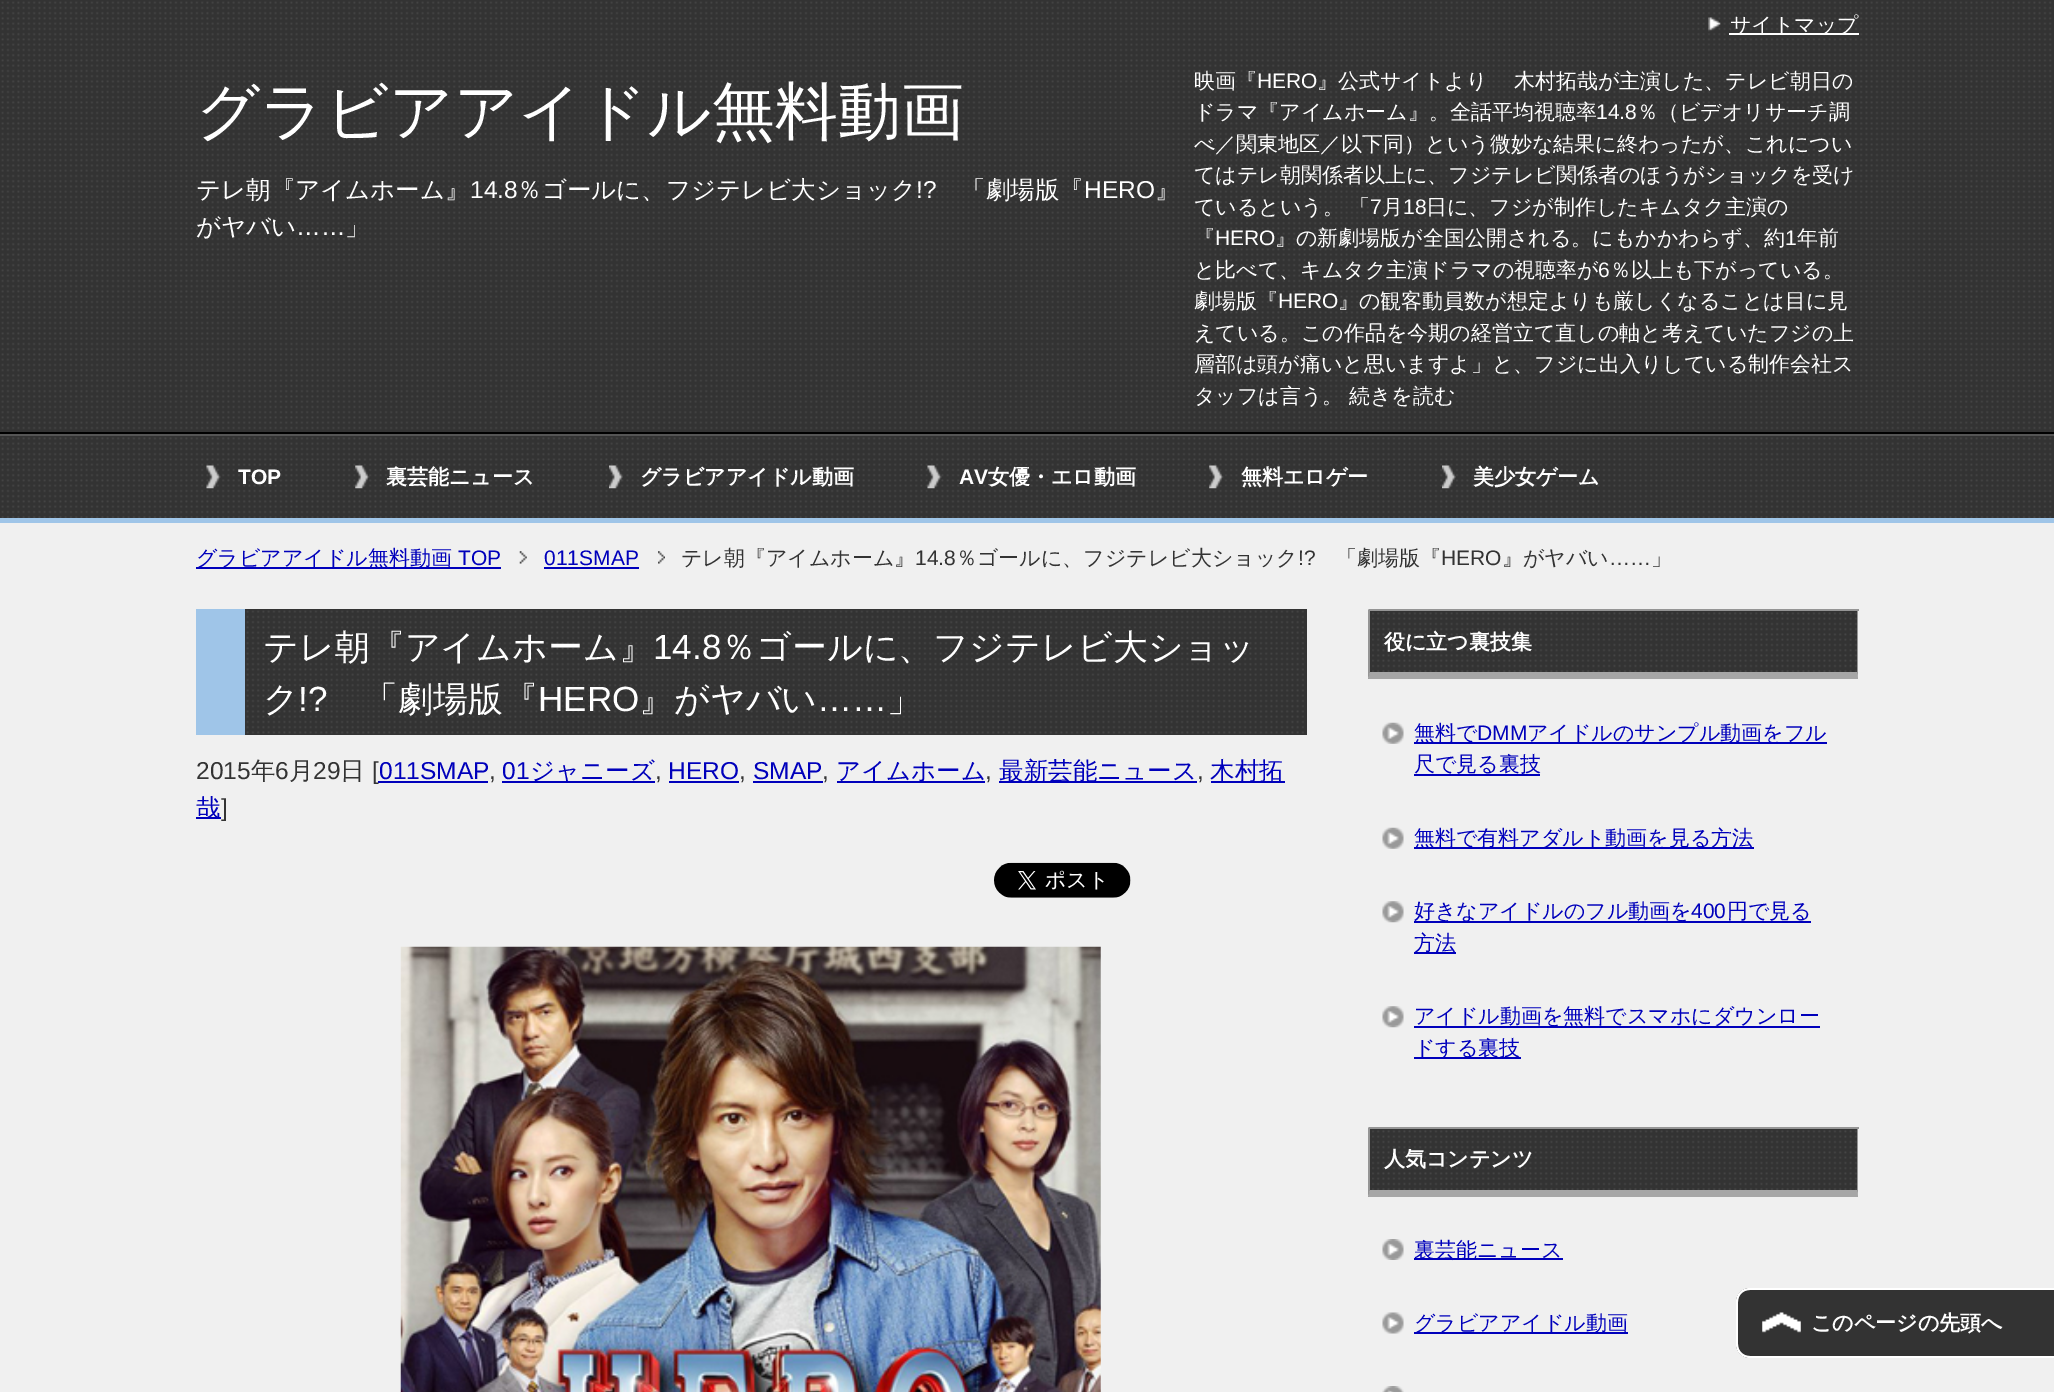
%!PS-Adobe-3.0
%%BoundingBox: 0 0 2054 1392
%%LanguageLevel: 3
%%Pages: 1
%%EndComments
%%BeginProlog
/setink { 3 { 255 div 3 1 roll } repeat setrgbcolor } def
/usefont { [ exch dup neg 0 0 3 -1 roll 0 0 ] selectfont } def
/drawtext { setink usefont moveto show } def
/fillbox { setink rectfill } def
/drawimage { 5 dict begin { /h /w /y /x /name } { exch def } forall
  gsave x y translate w h scale
  w h 8 [w 0 0 h 0 0] name (r) file false 3 colorimage grestore end } def
%%EndProlog
%%BeginSetup
<< /PageSize [2054 1392] >> setpagedevice
%%EndSetup
%%Page: 1 1
0 1392 translate 1 -1 scale
4 setmiterlimit
0 0 2054 1392 51 51 51 fillbox
(assets/img1.rgb) 1 1 2051 517 drawimage
(assets/img2.rgb) 1708 17 13 15 drawimage
1729 33 130 2 255 255 255 fillbox
(サイトマップ) 1730 32 /WenQuanYiZenHei-Medium 21 255 255 255 drawtext
0 432 2054 2 0 0 0 fillbox
(グラビアアイドル無料動画) 196 133 /WenQuanYiZenHei-Medium 63 255 255 255 drawtext
(テレ朝『アイムホーム』) 196 198 /WenQuanYiZenHei-Medium 24.5 255 255 255 drawtext
(14.8) 470 198 /LiberationSans-Regular 24.5 255 255 255 drawtext
(％ゴールに、フジテレビ大ショック) 517 198 /WenQuanYiZenHei-Medium 24.5 255 255 255 drawtext
(!?) 916 198 /LiberationSans-Regular 24.5 255 255 255 drawtext
(「劇場版『) 961 198 /WenQuanYiZenHei-Medium 24.5 255 255 255 drawtext
(HERO) 1084 198 /LiberationSans-Regular 24.5 255 255 255 drawtext
(』) 1155 198 /WenQuanYiZenHei-Medium 24.5 255 255 255 drawtext
(がヤバい) 196 235 /WenQuanYiZenHei-Medium 24.5 255 255 255 drawtext
(……) 296 235 /LiberationSans-Regular 24.5 255 255 255 drawtext
(」) 345 235 /WenQuanYiZenHei-Medium 24.5 255 255 255 drawtext
(映画『) 1194 88 /WenQuanYiZenHei-Medium 21 255 255 255 drawtext
(HERO) 1257 88 /LiberationSans-Regular 21 255 255 255 drawtext
(』公式サイトより) 1317 88 /WenQuanYiZenHei-Medium 21 255 255 255 drawtext
(木村拓哉が主演した、テレビ朝日の) 1514 88 /WenQuanYiZenHei-Medium 21 255 255 255 drawtext
(ドラマ『アイムホーム』。全話平均視聴率) 1194 119 /WenQuanYiZenHei-Medium 21 255 255 255 drawtext
(14.8) 1596 119 /LiberationSans-Regular 21 255 255 255 drawtext
(％（ビデオリサーチ調) 1637 119 /WenQuanYiZenHei-Medium 21 255 255 255 drawtext
(べ／関東地区／以下同）という微妙な結果に終わったが、これについ) 1194 151 /WenQuanYiZenHei-Medium 21 255 255 255 drawtext
(てはテレ朝関係者以上に、フジテレビ関係者のほうがショックを受け) 1194 182 /WenQuanYiZenHei-Medium 21 255 255 255 drawtext
(ているという。) 1194 214 /WenQuanYiZenHei-Medium 21 255 255 255 drawtext
(「) 1349 214 /WenQuanYiZenHei-Medium 21 255 255 255 drawtext
(7) 1370 214 /LiberationSans-Regular 21 255 255 255 drawtext
(月) 1382 214 /WenQuanYiZenHei-Medium 21 255 255 255 drawtext
(18) 1403 214 /LiberationSans-Regular 21 255 255 255 drawtext
(日に、フジが制作したキムタク主演の) 1426 214 /WenQuanYiZenHei-Medium 21 255 255 255 drawtext
(『) 1194 245 /WenQuanYiZenHei-Medium 21 255 255 255 drawtext
(HERO) 1215 245 /LiberationSans-Regular 21 255 255 255 drawtext
(』の新劇場版が全国公開される。にもかかわらず、約) 1275 245 /WenQuanYiZenHei-Medium 21 255 255 255 drawtext
(1) 1785 245 /LiberationSans-Regular 21 255 255 255 drawtext
(年前) 1797 245 /WenQuanYiZenHei-Medium 21 255 255 255 drawtext
(と比べて、キムタク主演ドラマの視聴率が) 1194 277 /WenQuanYiZenHei-Medium 21 255 255 255 drawtext
(6) 1598 277 /LiberationSans-Regular 21 255 255 255 drawtext
(％以上も下がっている。) 1610 277 /WenQuanYiZenHei-Medium 21 255 255 255 drawtext
(劇場版『) 1194 308 /WenQuanYiZenHei-Medium 21 255 255 255 drawtext
(HERO) 1278 308 /LiberationSans-Regular 21 255 255 255 drawtext
(』の観客動員数が想定よりも厳しくなることは目に見) 1338 308 /WenQuanYiZenHei-Medium 21 255 255 255 drawtext
(えている。この作品を今期の経営立て直しの軸と考えていたフジの上) 1194 340 /WenQuanYiZenHei-Medium 21 255 255 255 drawtext
(層部は頭が痛いと思いますよ」と、フジに出入りしている制作会社ス) 1194 371 /WenQuanYiZenHei-Medium 21 255 255 255 drawtext
(タッフは言う。) 1194 403 /WenQuanYiZenHei-Medium 21 255 255 255 drawtext
(続きを読む) 1349 403 /WenQuanYiZenHei-Medium 21 255 255 255 drawtext
0 434 2054 2 85 85 85 fillbox
0 518 2054 5 159 197 232 fillbox
(assets/img3.rgb) 206 465 15 24 drawimage
(TOP) 238 484 /LiberationSans-Bold 21 255 255 255 drawtext
(assets/img4.rgb) 355 465 15 24 drawimage
(裏芸能ニュース) 386 484 /WenQuanYiZenHei-Bold 21 255 255 255 drawtext
(assets/img5.rgb) 609 465 14 24 drawimage
(グラビアアイドル動画) 640 484 /WenQuanYiZenHei-Bold 21 255 255 255 drawtext
(assets/img6.rgb) 927 465 15 24 drawimage
(AV) 959 484 /LiberationSans-Bold 21 255 255 255 drawtext
(女優・エロ動画) 988 484 /WenQuanYiZenHei-Bold 21 255 255 255 drawtext
(assets/img7.rgb) 1209 465 15 24 drawimage
(無料エロゲー) 1241 484 /WenQuanYiZenHei-Bold 21 255 255 255 drawtext
(assets/img8.rgb) 1442 465 14 24 drawimage
(美少女ゲーム) 1473 484 /WenQuanYiZenHei-Bold 21 255 255 255 drawtext
0 523 2054 869 240 240 240 fillbox
196 567 305 2 0 0 187 fillbox
(グラビアアイドル無料動画) 196 565 /WenQuanYiZenHei-Medium 21 0 0 187 drawtext
(TOP) 458 565 /LiberationSans-Regular 21 0 0 187 drawtext
(assets/img9.rgb) 519 551 8 13 drawimage
(011SMAP) 544 565 /LiberationSans-Regular 21 0 0 187 drawtext
544 567 95 2 0 0 187 fillbox
(assets/img10.rgb) 658 551 7 13 drawimage
(テレ朝『アイムホーム』) 681 565 /WenQuanYiZenHei-Medium 21 51 51 51 drawtext
(14.8) 915 565 /LiberationSans-Regular 21 51 51 51 drawtext
(％ゴールに、フジテレビ大ショック) 956 565 /WenQuanYiZenHei-Medium 21 51 51 51 drawtext
(!?) 1298 565 /LiberationSans-Regular 21 51 51 51 drawtext
(「劇場版『) 1336 565 /WenQuanYiZenHei-Medium 21 51 51 51 drawtext
(HERO) 1441 565 /LiberationSans-Regular 21 51 51 51 drawtext
(』がヤバい) 1502 565 /WenQuanYiZenHei-Medium 21 51 51 51 drawtext
(……) 1609 565 /LiberationSans-Regular 21 51 51 51 drawtext
(」) 1651 565 /WenQuanYiZenHei-Medium 21 51 51 51 drawtext
245 609 1062 126 51 51 51 fillbox
(assets/img11.rgb) 246 610 1058 124 drawimage
196 609 49 126 159 197 232 fillbox
(テレ朝『アイムホーム』) 263 659 /WenQuanYiZenHei-Medium 35 255 255 255 drawtext
(14.8) 653 659 /LiberationSans-Regular 35 255 255 255 drawtext
(％ゴールに、フジテレビ大ショッ) 721 659 /WenQuanYiZenHei-Medium 35 255 255 255 drawtext
(ク) 263 711 /WenQuanYiZenHei-Medium 35 255 255 255 drawtext
(!?) 298 711 /LiberationSans-Regular 35 255 255 255 drawtext
(「劇場版『) 363 711 /WenQuanYiZenHei-Medium 35 255 255 255 drawtext
(HERO) 538 711 /LiberationSans-Regular 35 255 255 255 drawtext
(』がヤバい) 639 711 /WenQuanYiZenHei-Medium 35 255 255 255 drawtext
(……) 817 711 /LiberationSans-Regular 35 255 255 255 drawtext
(」) 887 711 /WenQuanYiZenHei-Medium 35 255 255 255 drawtext
(2015) 196 779 /LiberationSans-Regular 24.5 51 51 51 drawtext
(年) 251 779 /WenQuanYiZenHei-Medium 24.5 51 51 51 drawtext
(6) 275 779 /LiberationSans-Regular 24.5 51 51 51 drawtext
(月) 289 779 /WenQuanYiZenHei-Medium 24.5 51 51 51 drawtext
(29) 313 779 /LiberationSans-Regular 24.5 51 51 51 drawtext
(日) 340 779 /WenQuanYiZenHei-Medium 24.5 51 51 51 drawtext
([) 372 779 /LiberationSans-Regular 24.5 51 51 51 drawtext
(011SMAP) 379 779 /LiberationSans-Regular 24.5 0 0 187 drawtext
(,) 489 779 /LiberationSans-Regular 24.5 51 51 51 drawtext
378 781 110 2 0 0 187 fillbox
(01) 502 779 /LiberationSans-Regular 24.5 0 0 187 drawtext
502 781 153 2 0 0 187 fillbox
(ジャニーズ) 530 779 /WenQuanYiZenHei-Medium 24.5 0 0 187 drawtext
(,) 655 779 /LiberationSans-Regular 24.5 51 51 51 drawtext
(HERO) 668 779 /LiberationSans-Regular 24.5 0 0 187 drawtext
(,) 739 779 /LiberationSans-Regular 24.5 51 51 51 drawtext
669 781 70 2 0 0 187 fillbox
(SMAP) 753 779 /LiberationSans-Regular 24.5 0 0 187 drawtext
(,) 822 779 /LiberationSans-Regular 24.5 51 51 51 drawtext
753 781 70 2 0 0 187 fillbox
837 781 148 2 0 0 187 fillbox
(アイムホーム) 836 779 /WenQuanYiZenHei-Medium 24.5 0 0 187 drawtext
(,) 985 779 /LiberationSans-Regular 24.5 51 51 51 drawtext
999 781 198 2 0 0 187 fillbox
(最新芸能ニュース) 999 779 /WenQuanYiZenHei-Medium 24.5 0 0 187 drawtext
(,) 1197 779 /LiberationSans-Regular 24.5 51 51 51 drawtext
1211 781 74 2 0 0 187 fillbox
(木村拓) 1210 779 /WenQuanYiZenHei-Medium 24.5 0 0 187 drawtext
196 817 25 2 0 0 187 fillbox
(哉) 196 816 /WenQuanYiZenHei-Medium 24.5 0 0 187 drawtext
(]) 221 816 /LiberationSans-Regular 24.5 51 51 51 drawtext
(assets/img12.rgb) 994 862 137 36 drawimage
(assets/img13.rgb) 400 946 701 446 drawimage
1370 611 487 61 51 51 51 fillbox
(assets/img14.rgb) 1372 612 485 60 drawimage
1369 609 490 2 149 149 149 fillbox
1858 609 moveto 1858 679 lineto 1857 672 lineto 1857 611 lineto closepath fill
166 166 166 setink
1858 679 moveto 1368 679 lineto 1370 672 lineto 1857 672 lineto closepath fill
149 149 149 setink
1368 679 moveto 1368 609 lineto 1370 611 lineto 1370 672 lineto closepath fill
(役に立つ裏技集) 1384 649 /WenQuanYiZenHei-Bold 21 255 255 255 drawtext
(assets/img15.rgb) 1382 722 22 22 drawimage
1414 742 413 2 0 0 187 fillbox
(無料で) 1414 740 /WenQuanYiZenHei-Medium 21 0 0 187 drawtext
(DMM) 1477 740 /LiberationSans-Regular 21 0 0 187 drawtext
(アイドルのサンプル動画をフル) 1527 740 /WenQuanYiZenHei-Medium 21 0 0 187 drawtext
(尺で見る裏技) 1414 771 /WenQuanYiZenHei-Medium 21 0 0 187 drawtext
1414 774 126 2 0 0 187 fillbox
(assets/img15.rgb) 1382 827 22 22 drawimage
1414 847 340 2 0 0 187 fillbox
(無料で有料アダルト動画を見る方法) 1414 845 /WenQuanYiZenHei-Medium 21 0 0 187 drawtext
(assets/img16.rgb) 1382 901 22 22 drawimage
1414 921 397 2 0 0 187 fillbox
(好きなアイドルのフル動画を) 1414 918 /WenQuanYiZenHei-Medium 21 0 0 187 drawtext
(400) 1691 918 /LiberationSans-Regular 21 0 0 187 drawtext
(円で見る) 1727 918 /WenQuanYiZenHei-Medium 21 0 0 187 drawtext
1414 952 42 2 0 0 187 fillbox
(方法) 1414 950 /WenQuanYiZenHei-Medium 21 0 0 187 drawtext
(assets/img16.rgb) 1382 1006 22 22 drawimage
1414 1026 406 2 0 0 187 fillbox
(アイドル動画を無料でスマホにダウンロー) 1414 1023 /WenQuanYiZenHei-Medium 21 0 0 187 drawtext
1414 1057 107 2 0 0 187 fillbox
(ドする裏技) 1414 1055 /WenQuanYiZenHei-Medium 21 0 0 187 drawtext
1370 1129 487 61 51 51 51 fillbox
(assets/img14.rgb) 1372 1130 485 60 drawimage
1369 1127 490 2 149 149 149 fillbox
1858 1127 moveto 1858 1197 lineto 1857 1190 lineto 1857 1129 lineto closepath fill
166 166 166 setink
1858 1197 moveto 1368 1197 lineto 1370 1190 lineto 1857 1190 lineto closepath fill
149 149 149 setink
1368 1197 moveto 1368 1127 lineto 1370 1129 lineto 1370 1190 lineto closepath fill
(人気コンテンツ) 1384 1166 /WenQuanYiZenHei-Bold 21 255 255 255 drawtext
(assets/img17.rgb) 1382 1239 22 21 drawimage
1414 1258 149 2 0 0 187 fillbox
(裏芸能ニュース) 1414 1257 /WenQuanYiZenHei-Medium 21 0 0 187 drawtext
(assets/img18.rgb) 1382 1312 22 22 drawimage
1414 1332 214 2 0 0 187 fillbox
(グラビアアイドル動画) 1414 1330 /WenQuanYiZenHei-Medium 21 0 0 187 drawtext
(assets/img19.rgb) 1382 1386 22 6 drawimage
51 51 51 setink
1750 1288 moveto 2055 1288 lineto 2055 1358 lineto 1750 1358 lineto 1742.5 1358 1736 1351.5 1736 1344 curveto 1736 1302 lineto 1736 1294.5 1742.5 1288 1750 1288 curveto closepath fill
(assets/img20.rgb) 1762 1312 39 21 drawimage
255 255 255 setink
1750 1288 moveto 2054 1288 lineto 2054 1358 lineto 1750 1358 lineto 1742 1358 1736 1352 1736 1344 curveto 1736 1302 lineto 1736 1294 1742 1288 1750 1288 curveto closepath 1750 1290 moveto 2054 1290 lineto 2054 1356 lineto 1750 1356 lineto 1743 1356 1738 1351 1738 1344 curveto 1738 1302 lineto 1738 1295 1743 1290 1750 1290 curveto closepath eofill
(このページの先頭へ) 1811 1330 /WenQuanYiZenHei-Bold 21 255 255 255 drawtext
showpage
%%EOF
